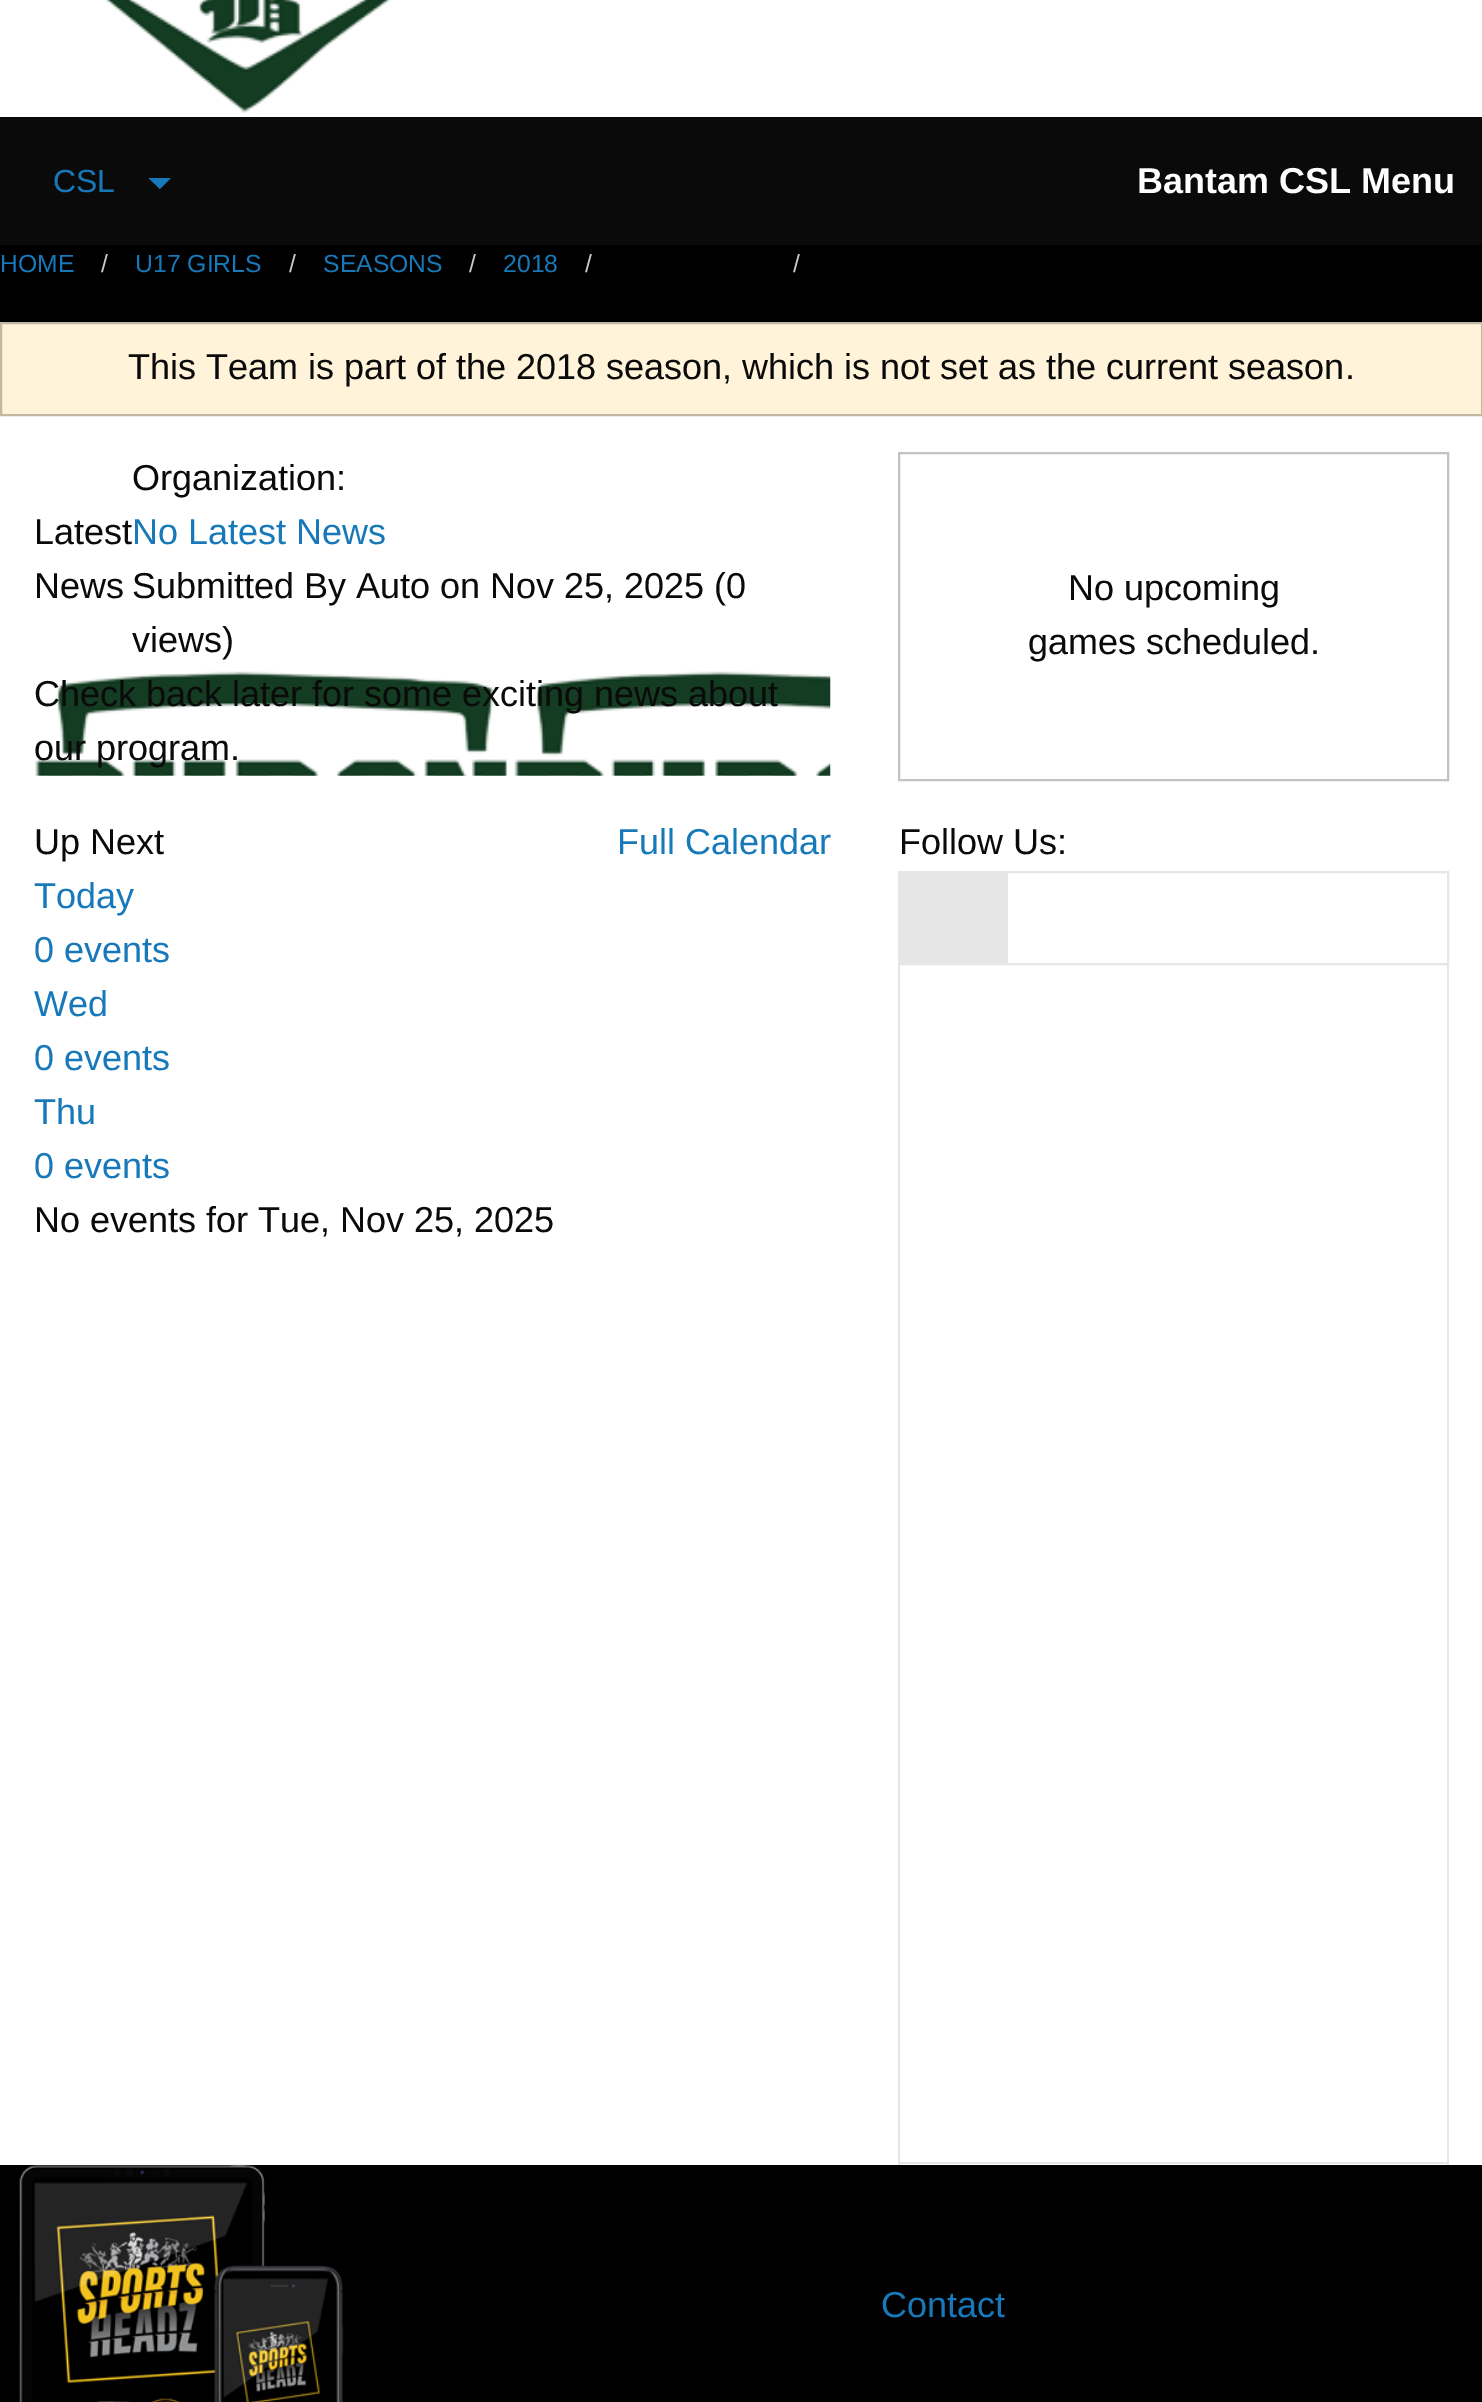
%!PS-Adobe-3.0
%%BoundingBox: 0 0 1482 2402
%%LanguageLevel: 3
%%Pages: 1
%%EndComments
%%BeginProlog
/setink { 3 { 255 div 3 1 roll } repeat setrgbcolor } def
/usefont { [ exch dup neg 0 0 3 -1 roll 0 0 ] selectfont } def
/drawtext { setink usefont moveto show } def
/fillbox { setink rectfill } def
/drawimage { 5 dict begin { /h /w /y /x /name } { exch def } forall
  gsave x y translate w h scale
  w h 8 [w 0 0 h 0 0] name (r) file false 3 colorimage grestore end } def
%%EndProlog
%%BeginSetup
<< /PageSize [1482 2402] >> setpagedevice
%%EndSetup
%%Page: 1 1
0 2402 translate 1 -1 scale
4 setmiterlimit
0 0 1482 2402 0 0 0 fillbox
0 0 1482 117 255 255 255 fillbox
(assets/img1.rgb) 105 0 285 113 drawimage
0 117 1482 128 10 10 10 fillbox
(CSL) 53 192 /LiberationSans-Regular 32 23 121 186 drawtext
148.5 178 moveto 171 178 lineto 160 189 lineto closepath fill
(Bantam CSL Menu) 1137 193 /LiberationSans-Bold 36 254 254 254 drawtext
(HOME) 0 272 /LiberationSans-Regular 24.75 23 121 186 drawtext
(/) 101 272 /LiberationSans-Regular 24.75 202 202 202 drawtext
(U17 GIRLS) 135 272 /LiberationSans-Regular 24.75 23 121 186 drawtext
(/) 289 272 /LiberationSans-Regular 24.75 202 202 202 drawtext
(SEASONS) 323 272 /LiberationSans-Regular 24.75 23 121 186 drawtext
(/) 469 272 /LiberationSans-Regular 24.75 202 202 202 drawtext
(2018) 503 272 /LiberationSans-Regular 24.75 23 121 186 drawtext
(/) 585 272 /LiberationSans-Regular 24.75 202 202 202 drawtext
(/) 793 272 /LiberationSans-Regular 24.75 202 202 202 drawtext
0 416 1482 1749 255 255 255 fillbox
255 243 217 setink
1 323 moveto 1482 323 lineto 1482 415 lineto 1 415 lineto closepath gsave fill grestore
194 185 165 setink
2 setlinewidth
stroke
(This Team is part of the 2018 season, which is not set as the current season.) 128 379 /LiberationSans-Regular 36 10 10 10 drawtext
(Latest) 34 544 /LiberationSans-Regular 36 10 10 10 drawtext
(News) 34 598 /LiberationSans-Regular 36 10 10 10 drawtext
(Organization:) 132 490 /LiberationSans-Regular 36 10 10 10 drawtext
(No Latest News) 132 544 /LiberationSans-Regular 36 23 121 186 drawtext
(Submitted By Auto on Nov 25, 2025 \(0) 132 598 /LiberationSans-Regular 36 10 10 10 drawtext
(views\)) 132 652 /LiberationSans-Regular 36 10 10 10 drawtext
(assets/img2.rgb) 35 671 796 105 drawimage
(Check back later for some exciting news about) 34 706 /LiberationSans-Regular 36 10 10 10 drawtext
(our program.) 34 760 /LiberationSans-Regular 36 10 10 10 drawtext
194 194 194 setink
899 453 549 327 rectstroke
(No upcoming) 1068 600 /LiberationSans-Regular 36 10 10 10 drawtext
(games scheduled.) 1028 654 /LiberationSans-Regular 36 10 10 10 drawtext
(Up Next) 34 854 /LiberationSans-Regular 36 10 10 10 drawtext
(Full Calendar) 617 854 /LiberationSans-Regular 36 23 121 186 drawtext
(Today) 34 908 /LiberationSans-Regular 36 23 121 186 drawtext
(0 events) 34 962 /LiberationSans-Regular 36 23 121 186 drawtext
(Wed) 34 1016 /LiberationSans-Regular 36 23 121 186 drawtext
(0 events) 34 1070 /LiberationSans-Regular 36 23 121 186 drawtext
(Thu) 34 1124 /LiberationSans-Regular 36 23 121 186 drawtext
(0 events) 34 1178 /LiberationSans-Regular 36 23 121 186 drawtext
(No events for Tue, Nov 25, 2025) 34 1232 /LiberationSans-Regular 36 10 10 10 drawtext
(Follow Us:) 899 854 /LiberationSans-Regular 36 10 10 10 drawtext
230 230 230 setink
899 872 549 92 rectstroke
900 873 108 90 230 230 230 fillbox
1447 965 2 1200 230 230 230 fillbox
898 2162 551 2 230 230 230 fillbox
898 965 2 1200 230 230 230 fillbox
(assets/img3.rgb) 19 2164 325 238 drawimage
(Contact) 881 2317 /LiberationSans-Regular 36 23 121 186 drawtext
showpage
%%EOF
